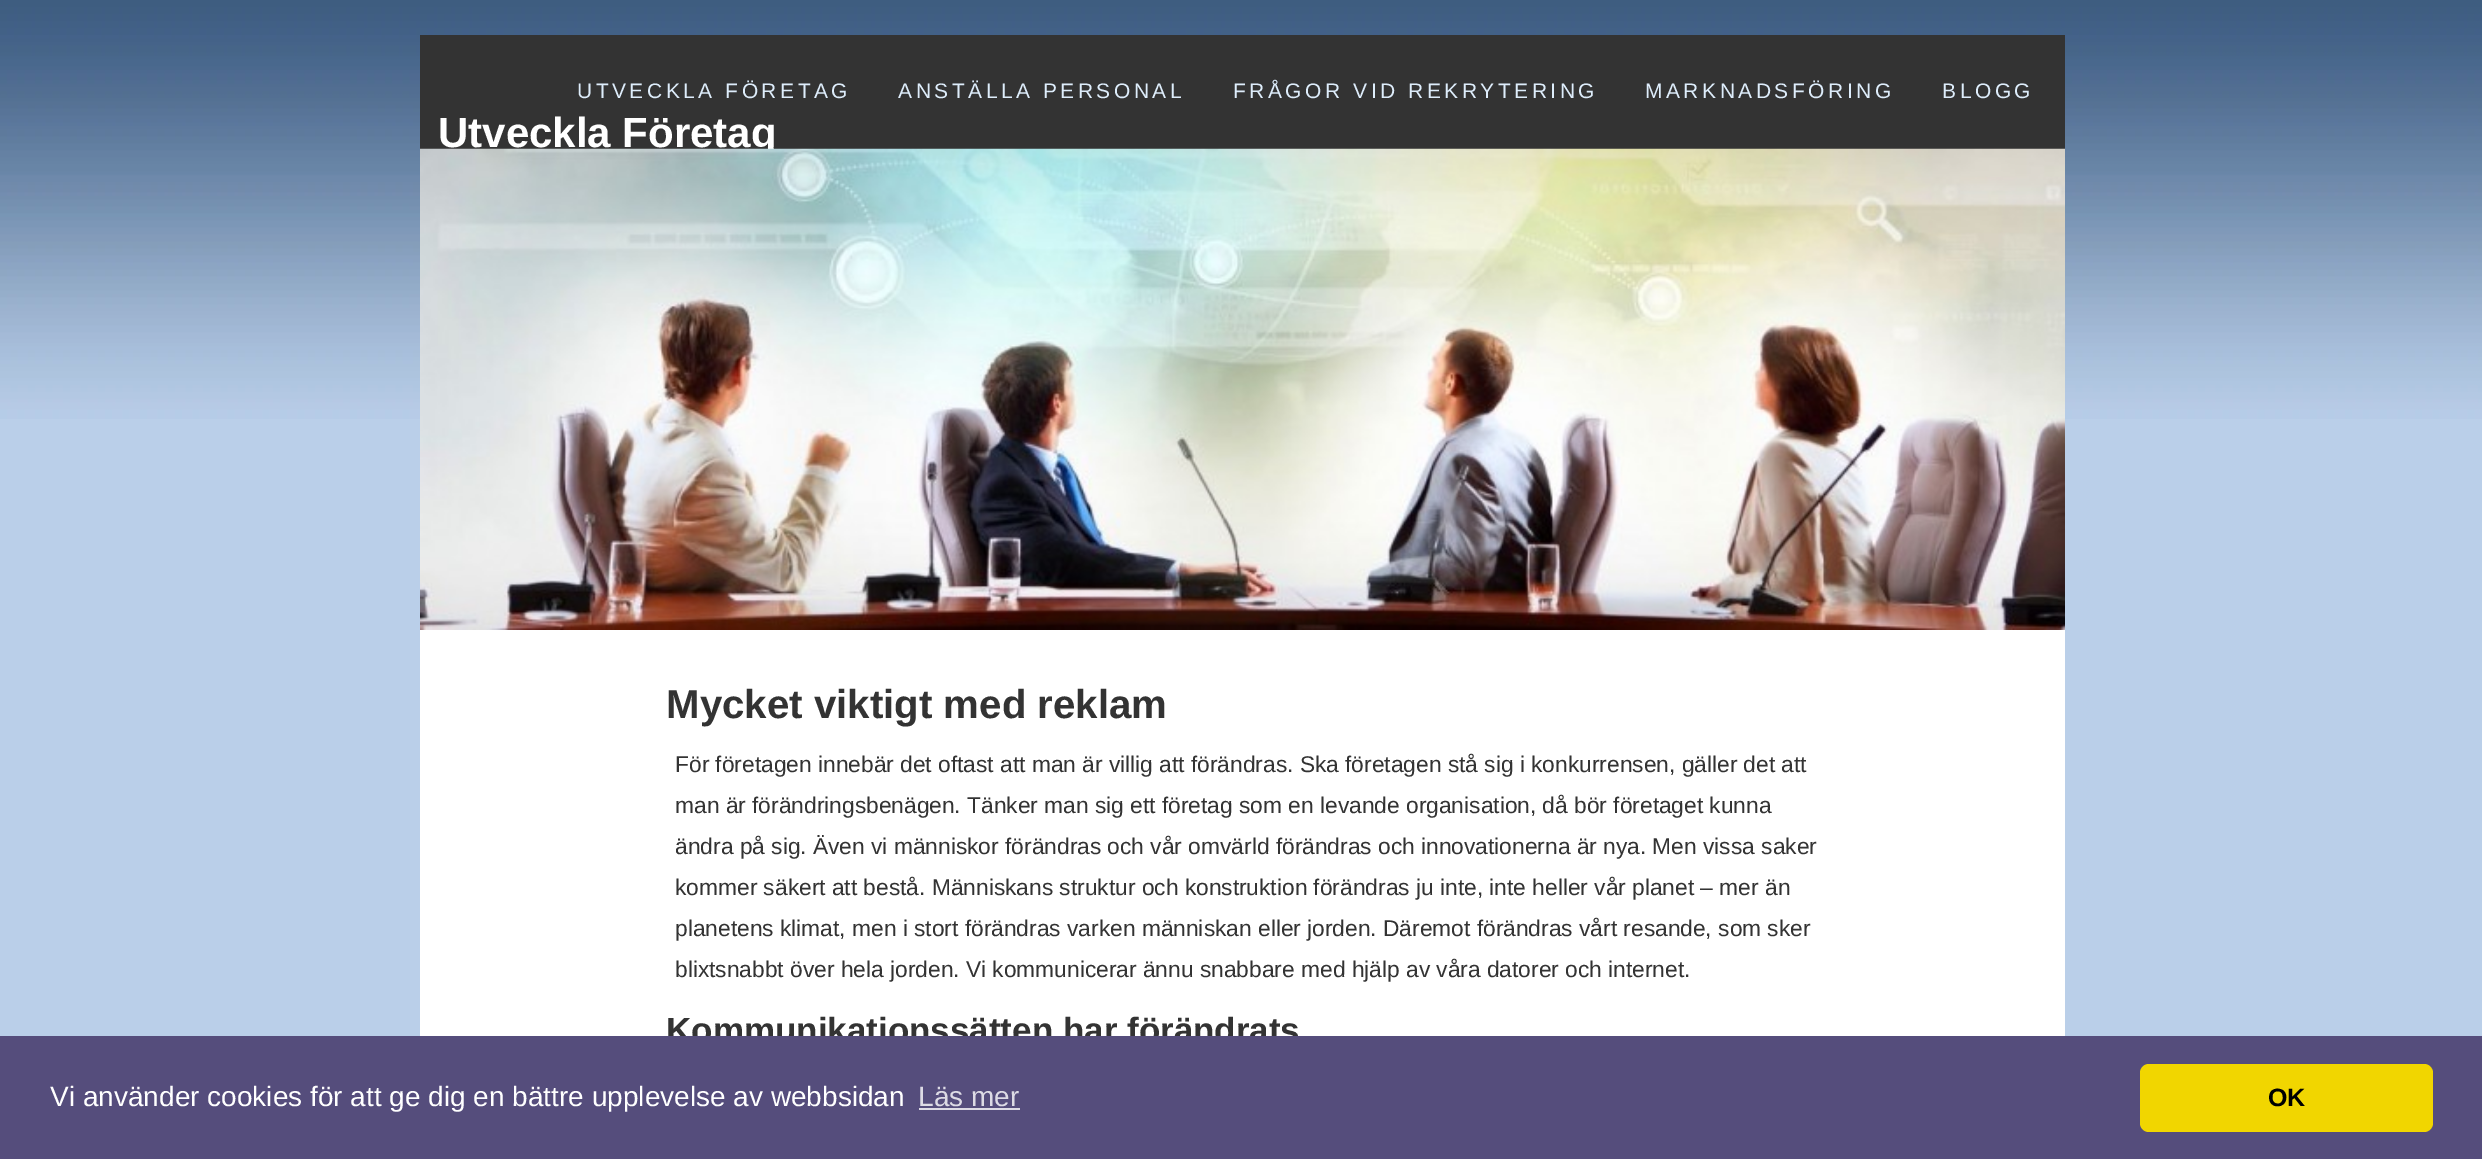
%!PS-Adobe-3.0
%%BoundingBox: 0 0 2482 1159
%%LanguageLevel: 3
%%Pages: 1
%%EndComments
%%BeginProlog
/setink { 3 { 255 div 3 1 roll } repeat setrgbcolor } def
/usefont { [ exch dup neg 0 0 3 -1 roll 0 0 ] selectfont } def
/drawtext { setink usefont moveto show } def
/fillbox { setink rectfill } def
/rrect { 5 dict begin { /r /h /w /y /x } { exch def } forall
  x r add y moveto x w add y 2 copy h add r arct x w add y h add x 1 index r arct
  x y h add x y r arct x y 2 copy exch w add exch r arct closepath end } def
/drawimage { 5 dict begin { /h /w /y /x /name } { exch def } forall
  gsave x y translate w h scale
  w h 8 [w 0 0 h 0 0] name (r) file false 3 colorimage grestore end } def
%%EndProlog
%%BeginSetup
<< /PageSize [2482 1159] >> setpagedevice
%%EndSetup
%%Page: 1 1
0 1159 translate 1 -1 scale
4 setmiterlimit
0 0 2482 1159 186 207 233 fillbox
(assets/img1.rgb) 0 0 2482 419 drawimage
420 630 1645 406 255 255 255 fillbox
420 35 1645 114 51 51 51 fillbox
/LiberationSans-Regular 21 usefont
222 237 251 setink
577 98 moveto 3.5 0 (UTVECKLA FÖRETAG) ashow
898 98 moveto 3.5 0 (ANSTÄLLA PERSONAL) ashow
1233 98 moveto 3.5 0 (FRÅGOR VID REKRYTERING) ashow
1645 98 moveto 3.5 0 (MARKNADSFÖRING) ashow
1942 98 moveto 3.5 0 (BLOGG) ashow
(Utveckla Företag) 438 147 /LiberationSans-Bold 42 255 255 255 drawtext
(assets/img2.rgb) 420 148 1645 482 drawimage
(Mycket viktigt med reklam) 666 718 /LiberationSans-Bold 40.25 51 51 51 drawtext
(För företagen innebär det oftast att man är villig att förändras. Ska företagen stå sig i konkurrensen, gäller det att) 675 772 /LiberationSans-Regular 22.75 51 51 51 drawtext
(man är förändringsbenägen. Tänker man sig ett företag som en levande organisation, då bör företaget kunna) 675 813 /LiberationSans-Regular 22.75 51 51 51 drawtext
(ändra på sig. Även vi människor förändras och vår omvärld förändras och innovationerna är nya. Men vissa saker) 675 854 /LiberationSans-Regular 22.75 51 51 51 drawtext
(kommer säkert att bestå. Människans struktur och konstruktion förändras ju inte, inte heller vår planet – mer än) 675 895 /LiberationSans-Regular 22.75 51 51 51 drawtext
(planetens klimat, men i stort förändras varken människan eller jorden. Däremot förändras vårt resande, som sker) 675 936 /LiberationSans-Regular 22.75 51 51 51 drawtext
(blixtsnabbt över hela jorden. Vi kommunicerar ännu snabbare med hjälp av våra datorer och internet.) 675 977 /LiberationSans-Regular 22.75 51 51 51 drawtext
(Kommunikationssätten har förändrats) 666 1042 /LiberationSans-Bold 35 51 51 51 drawtext
0 1036 2482 123 85 77 124 fillbox
(Vi använder cookies för att ge dig en bättre upplevelse av webbsidan) 50 1106 /LiberationSans-Regular 28 255 255 255 drawtext
(Läs mer) 918 1106 /LiberationSans-Regular 28 221 219 229 drawtext
919 1108 101 2 221 219 229 fillbox
241 214 0 setink
2140 1064 293 68 9 rrect fill
(OK) 2268 1106 /LiberationSans-Bold 25 0 0 0 drawtext
showpage
%%EOF
